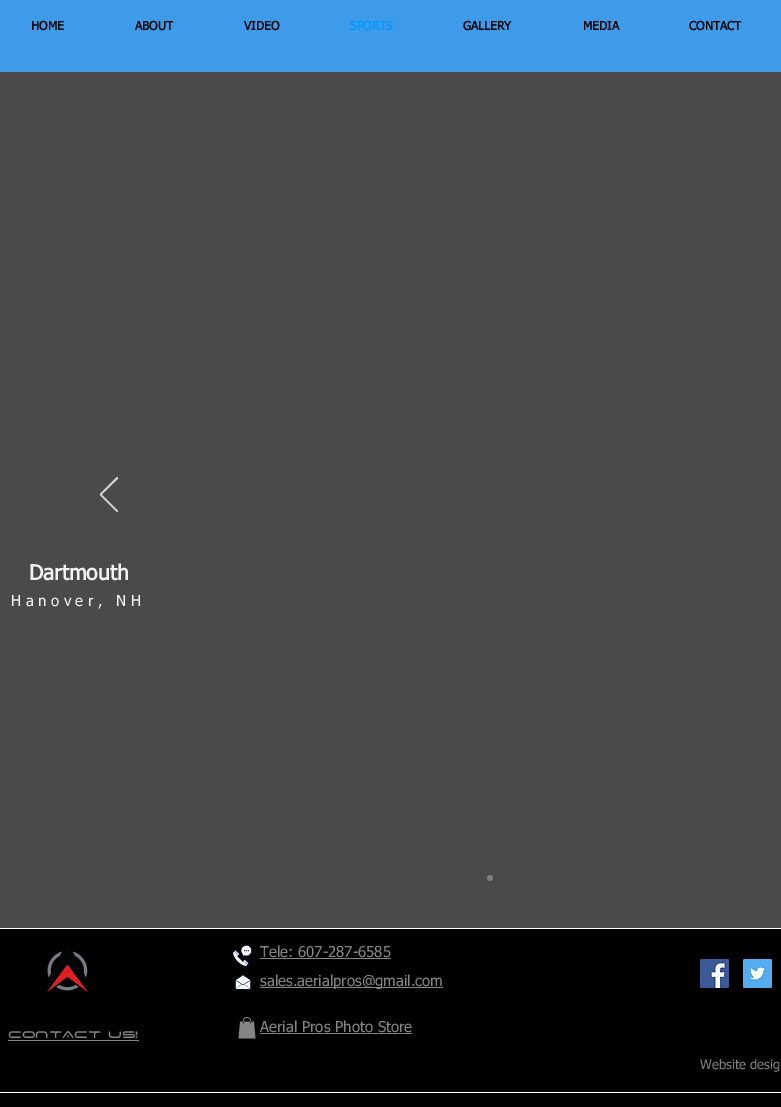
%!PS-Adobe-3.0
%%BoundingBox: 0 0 781 1107
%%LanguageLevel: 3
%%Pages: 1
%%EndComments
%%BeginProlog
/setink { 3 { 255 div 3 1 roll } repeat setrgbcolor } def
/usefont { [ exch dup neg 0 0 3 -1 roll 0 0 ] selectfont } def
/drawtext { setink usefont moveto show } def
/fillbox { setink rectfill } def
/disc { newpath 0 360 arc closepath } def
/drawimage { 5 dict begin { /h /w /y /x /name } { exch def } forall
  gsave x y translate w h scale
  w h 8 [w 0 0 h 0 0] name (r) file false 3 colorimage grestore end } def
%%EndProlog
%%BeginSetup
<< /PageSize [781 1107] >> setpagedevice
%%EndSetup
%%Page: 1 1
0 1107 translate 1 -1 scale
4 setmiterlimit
0 0 781 1107 0 0 0 fillbox
0 0 781 72 61 155 233 fillbox
(HOME) 31 30 /tahoma-Bold 12 0 0 0 drawtext
(ABOUT) 135 30 /tahoma-Bold 12 0 0 0 drawtext
(VIDEO) 244 30 /tahoma-Bold 12 0 0 0 drawtext
(SPORTS) 350 30 /tahoma-Bold 12 0 153 255 drawtext
(GALLERY) 463 30 /tahoma-Bold 12 0 0 0 drawtext
(MEDIA) 583 30 /tahoma-Bold 12 0 0 0 drawtext
(CONTACT) 689 30 /tahoma-Bold 12 0 0 0 drawtext
0 72 781 856 74 74 74 fillbox
gsave
100 477 18 35 rectclip
214 214 214 setink
0.9 setlinewidth
117.5 512 moveto 100 494.5 lineto 117.5 477 lineto 118 478 lineto 101 494.5 lineto 118 511.5 lineto closepath stroke
grestore
(Dartmouth) 29 580 /tahoma-Bold 21 243 243 243 drawtext
/tahoma-Regular 15 usefont
11 606 moveto 4.5 0 (Hanover, NH) ashow
125 125 125 setink
490 878 3 disc fill
0 928 781 1 255 255 255 fillbox
0 1092 781 1 255 255 255 fillbox
(assets/img1.rgb) 47 945 41 48 drawimage
(assets/img2.rgb) 232 945 20 22 drawimage
(Tele: 607-287-6585) 260 957 /tahoma-Regular 15 133 133 133 drawtext
260 958 131 1 133 133 133 fillbox
(assets/img3.rgb) 235 975 16 15 drawimage
260 987 183 1 133 133 133 fillbox
(sales.aerialpros@gmail.com) 260 986 /tahoma-Regular 15 133 133 133 drawtext
(assets/img4.rgb) 700 959 29 29 drawimage
(assets/img5.rgb) 743 959 29 29 drawimage
(assets/img6.rgb) 238 1017 18 22 drawimage
(Aerial Pros Photo Store) 260 1032 /tahoma-Regular 15 133 133 133 drawtext
260 1033 152 1 133 133 133 fillbox
(CONTACT US!) 8 1039 /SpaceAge-Regular 15 133 133 133 drawtext
8 1040 131 1 133 133 133 fillbox
(Website desig) 700 1069 /tahoma-Regular 13 133 133 133 drawtext
showpage
%%EOF
